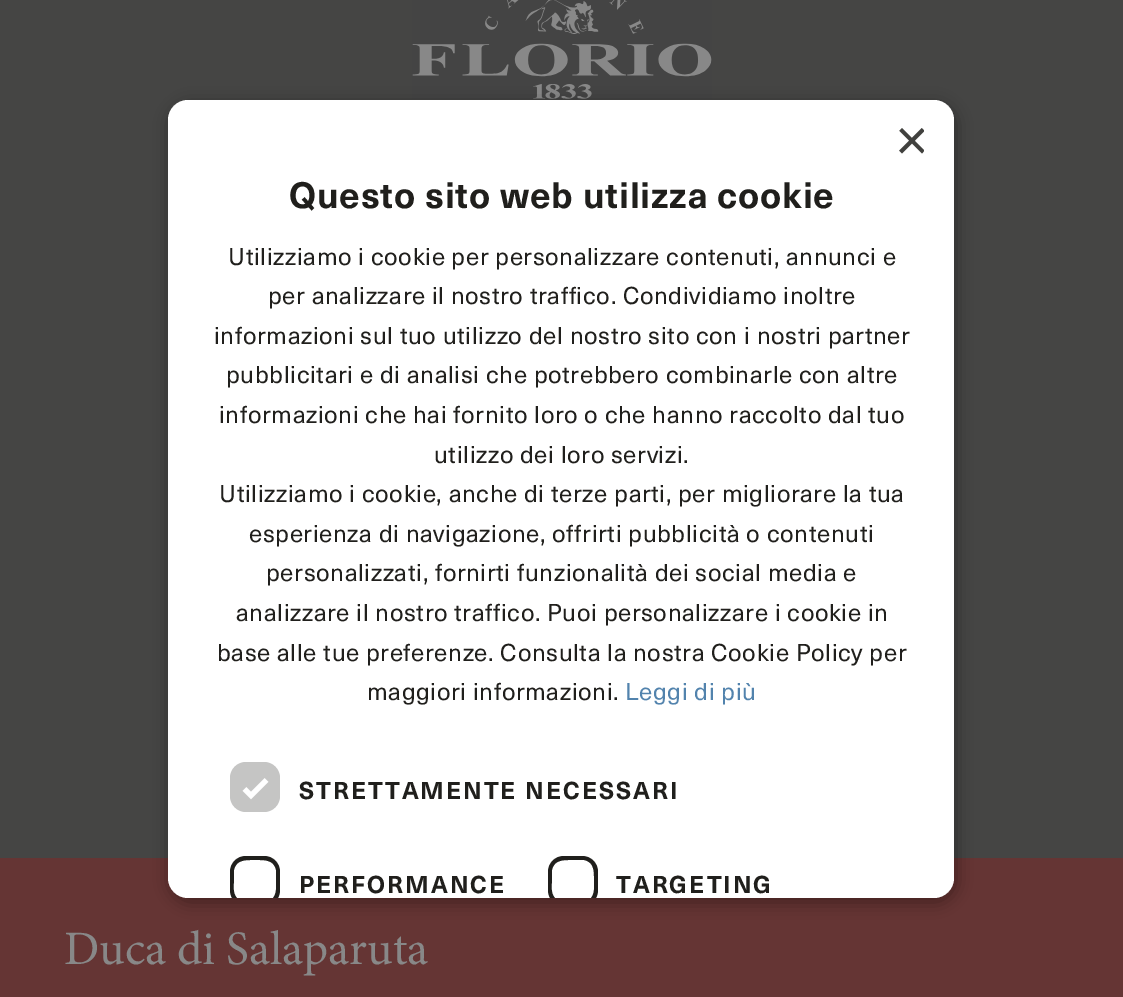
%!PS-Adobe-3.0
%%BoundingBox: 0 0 1123 997
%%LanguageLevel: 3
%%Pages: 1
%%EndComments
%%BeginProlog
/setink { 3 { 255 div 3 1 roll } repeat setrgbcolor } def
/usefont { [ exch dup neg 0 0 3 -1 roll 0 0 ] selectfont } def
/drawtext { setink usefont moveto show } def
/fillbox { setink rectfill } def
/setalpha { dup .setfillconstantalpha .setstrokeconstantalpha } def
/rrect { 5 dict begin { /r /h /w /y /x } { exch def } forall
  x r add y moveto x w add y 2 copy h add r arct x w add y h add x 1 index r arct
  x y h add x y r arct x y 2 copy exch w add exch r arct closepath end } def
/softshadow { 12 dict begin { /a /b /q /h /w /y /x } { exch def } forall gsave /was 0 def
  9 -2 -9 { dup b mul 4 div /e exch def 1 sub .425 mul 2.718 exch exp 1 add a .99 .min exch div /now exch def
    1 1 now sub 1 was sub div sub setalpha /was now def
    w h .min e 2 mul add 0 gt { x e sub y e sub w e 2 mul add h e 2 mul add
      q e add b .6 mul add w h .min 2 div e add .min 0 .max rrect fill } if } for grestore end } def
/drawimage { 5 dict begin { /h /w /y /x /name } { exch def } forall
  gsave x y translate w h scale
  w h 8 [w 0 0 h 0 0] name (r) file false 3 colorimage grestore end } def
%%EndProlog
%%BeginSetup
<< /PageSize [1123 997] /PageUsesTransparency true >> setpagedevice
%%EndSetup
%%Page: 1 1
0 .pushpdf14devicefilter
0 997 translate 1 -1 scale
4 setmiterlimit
0 0 1123 997 101 53 52 fillbox
0 0 1123 858 69 69 68 fillbox
(assets/img1.rgb) 412 0 300 99 drawimage
0 0 0 setink
170 104 786 798 20 8 0.35 softshadow
255 255 255 setink
168 100 786 798 20 rrect fill
gsave
894 128 30 30 rectclip
(×) 895 160 /LiberationSans-Regular 58 65 65 62 drawtext
grestore
/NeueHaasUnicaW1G-Bold 36 usefont
32 31 28 setink
289 208 moveto 0.8 0 (Questo sito web utilizza cookie) ashow
/NeueHaasUnicaW1G-Regular 24 usefont
228 265 moveto 0.6 0 (Utilizziamo i cookie per personalizzare contenuti, annunci e) ashow
268 304 moveto 0.6 0 (per analizzare il nostro traffico. Condividiamo inoltre) ashow
214 344 moveto 0.6 0 (informazioni sul tuo utilizzo del nostro sito con i nostri partner) ashow
226 383 moveto 0.6 0 (pubblicitari e di analisi che potrebbero combinarle con altre) ashow
219 423 moveto 0.6 0 (informazioni che hai fornito loro o che hanno raccolto dal tuo) ashow
434 463 moveto 0.6 0 (utilizzo dei loro servizi.) ashow
219 502 moveto 0.6 0 (Utilizziamo i cookie, anche di terze parti, per migliorare la tua) ashow
249 542 moveto 0.6 0 (esperienza di navigazione, offrirti pubblicità o contenuti) ashow
266 581 moveto 0.6 0 (personalizzati, fornirti funzionalità dei social media e) ashow
236 621 moveto 0.6 0 (analizzare il nostro traffico. Puoi personalizzare i cookie in) ashow
217 661 moveto 0.6 0 (base alle tue preferenze. Consulta la nostra Cookie Policy per) ashow
367 700 moveto 0.6 0 (maggiori informazioni.) ashow
82 131 173 setink
625 700 moveto 0.6 0 (Leggi di più) ashow
197 197 196 setink
230 762 50 50 16 rrect fill
255 255 255 setink
5.2 setlinewidth
244.5 789 moveto 251 795.5 lineto 266.5 780 lineto stroke
/NeueHaasUnicaW1G-Bold 24 usefont
32 31 28 setink
299 799 moveto 2 0 (STRETTAMENTE NECESSARI) ashow
246 856 moveto 237 856 230 863 230 872 curveto 230 890 lineto 230 893 231 896 232 898 curveto 237 898 lineto 232 893 234 884 234 878 curveto 234 870 lineto 236 859 247 860 255 860 curveto 263 860 274 859 276 870 curveto 276 881 lineto 276 887 277 893 273 898 curveto 278 898 lineto 279 896 280 893 280 890 curveto 280 872 lineto 280 863 273 856 264 856 curveto closepath fill
299 893 moveto 2 0 (PERFORMANCE) ashow
564 856 moveto 555 856 548 863 548 872 curveto 548 890 lineto 548 893 549 896 550 898 curveto 555 898 lineto 550 893 552 884 552 878 curveto 552 870 lineto 554 859 565 860 573 860 curveto 584 860 lineto 595 862 594 873 594 881 curveto 594 887 595 893 591 898 curveto 596 898 lineto 597 896 598 893 598 890 curveto 598 872 lineto 598 863 591 856 582 856 curveto closepath fill
616 893 moveto 2 0 (TARGETING) ashow
(Duca di Salaparuta) 64 964 /Minion-Regular 48 136 136 136 drawtext
.poppdf14devicefilter showpage
%%EOF
